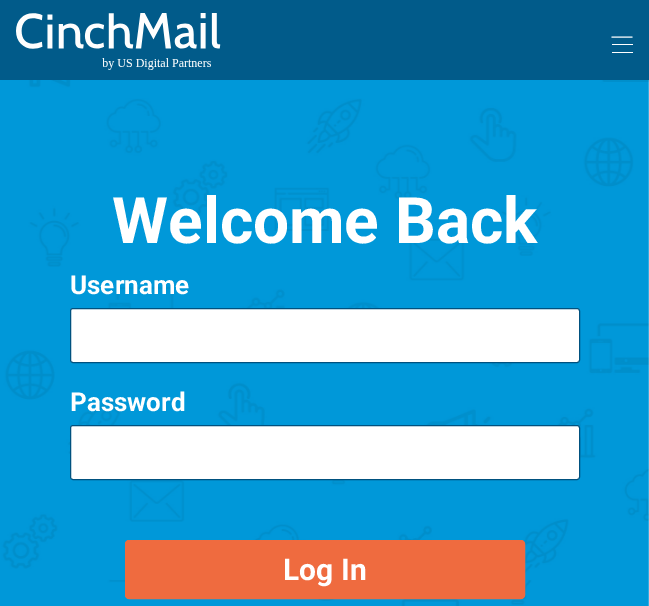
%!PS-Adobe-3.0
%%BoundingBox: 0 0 649 606
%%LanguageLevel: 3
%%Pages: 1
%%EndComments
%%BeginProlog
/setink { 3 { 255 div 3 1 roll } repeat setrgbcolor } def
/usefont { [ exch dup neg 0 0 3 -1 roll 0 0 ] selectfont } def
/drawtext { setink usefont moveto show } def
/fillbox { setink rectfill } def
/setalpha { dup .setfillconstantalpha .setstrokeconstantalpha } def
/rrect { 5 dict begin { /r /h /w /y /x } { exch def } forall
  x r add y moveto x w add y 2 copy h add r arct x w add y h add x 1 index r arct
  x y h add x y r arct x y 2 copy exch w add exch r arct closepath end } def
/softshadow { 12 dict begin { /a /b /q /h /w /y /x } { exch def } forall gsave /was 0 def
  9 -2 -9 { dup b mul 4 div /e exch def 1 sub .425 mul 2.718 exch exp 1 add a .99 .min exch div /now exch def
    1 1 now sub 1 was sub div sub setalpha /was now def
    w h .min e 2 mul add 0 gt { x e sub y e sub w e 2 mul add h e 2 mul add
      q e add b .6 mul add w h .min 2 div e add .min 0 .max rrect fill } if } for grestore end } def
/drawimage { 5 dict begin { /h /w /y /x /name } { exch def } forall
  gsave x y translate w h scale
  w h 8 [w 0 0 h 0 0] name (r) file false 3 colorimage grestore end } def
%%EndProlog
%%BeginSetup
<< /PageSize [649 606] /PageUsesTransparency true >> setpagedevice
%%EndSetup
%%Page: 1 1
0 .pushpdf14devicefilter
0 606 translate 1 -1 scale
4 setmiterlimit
0 0 649 606 255 255 255 fillbox
0 0 0 setink
0 1 649 80 0 1 0.25 softshadow
0 0 649 80 1 91 138 fillbox
(assets/img1.rgb) 16 13 205 57 drawimage
255 255 255 setink
2 setlinecap
612 37 moveto 632 37 lineto stroke
612 44 21 1 255 255 255 fillbox
612 52 21 1 255 255 255 fillbox
(assets/img2.rgb) 0 80 649 526 drawimage
(Welcome Back) 112 243 /Roboto-Bold 64 255 255 255 drawtext
(Username) 70 294 /Roboto-Bold 26 255 255 255 drawtext
70.5 308.5 509 54 2.5 rrect gsave fill grestore
0 81 127 setink
0 setlinecap
stroke
(Password) 70 411 /Roboto-Bold 26 255 255 255 drawtext
70.5 425.5 509 54 2.5 rrect gsave fill grestore
0 81 127 setink
stroke
239 107 63 setink
125.5 540.5 399 58 3.5 rrect gsave fill grestore
stroke
(Log In) 283 580 /Roboto-Bold 30 255 255 255 drawtext
.poppdf14devicefilter showpage
%%EOF
